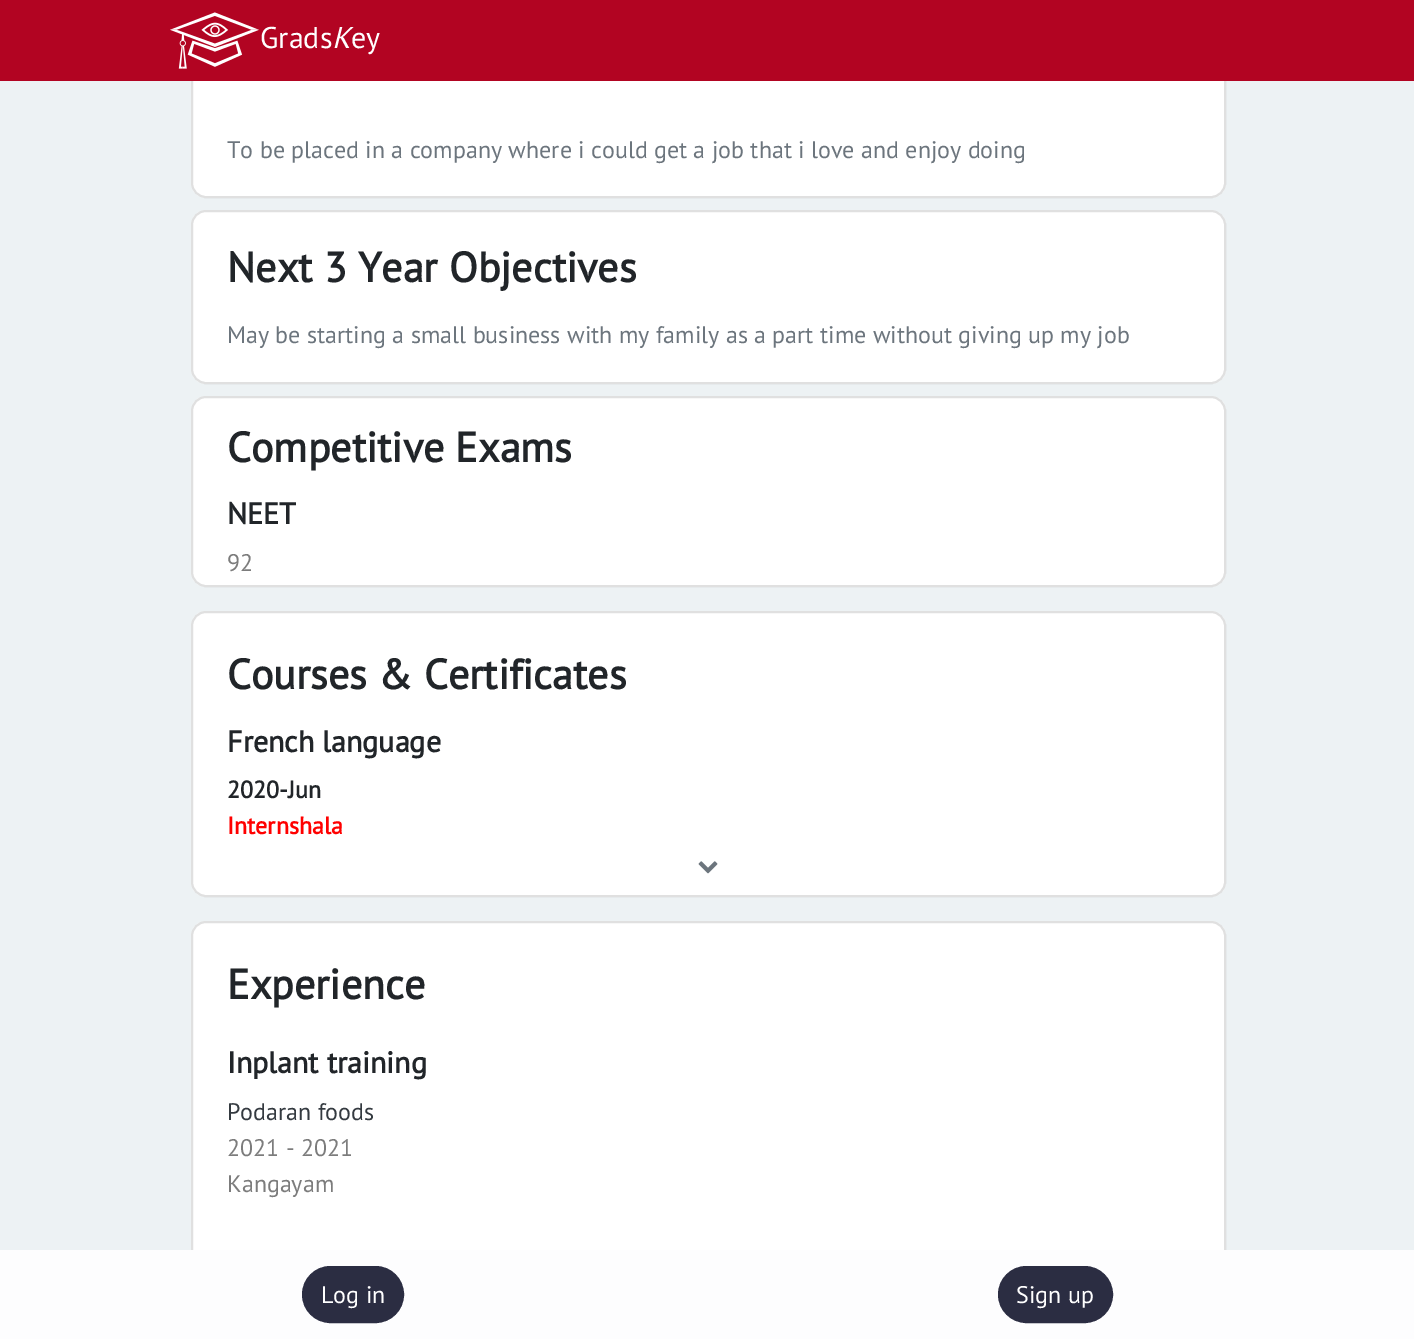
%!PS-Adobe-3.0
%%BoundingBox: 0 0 1414 1339
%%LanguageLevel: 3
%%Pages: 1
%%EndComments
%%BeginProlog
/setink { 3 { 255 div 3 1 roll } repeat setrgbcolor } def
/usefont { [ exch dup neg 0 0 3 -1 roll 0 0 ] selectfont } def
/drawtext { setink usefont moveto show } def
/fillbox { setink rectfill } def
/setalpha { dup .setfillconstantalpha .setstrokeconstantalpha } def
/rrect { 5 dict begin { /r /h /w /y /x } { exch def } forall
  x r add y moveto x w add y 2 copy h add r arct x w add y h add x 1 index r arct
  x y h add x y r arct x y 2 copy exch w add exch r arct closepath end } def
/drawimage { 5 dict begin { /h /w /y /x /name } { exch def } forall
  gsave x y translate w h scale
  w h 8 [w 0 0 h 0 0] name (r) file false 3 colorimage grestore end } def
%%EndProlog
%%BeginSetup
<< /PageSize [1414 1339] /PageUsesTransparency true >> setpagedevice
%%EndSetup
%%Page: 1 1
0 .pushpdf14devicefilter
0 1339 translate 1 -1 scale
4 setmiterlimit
0 0 1414 1339 237 242 244 fillbox
255 255 255 setink
191 26 1035 172 15 rrect fill
0.12 setalpha
0 0 0 setink
2 setlinewidth
192 27 1033 170 14 rrect stroke
1 setalpha
0 0 1414 81 178 4 34 fillbox
(assets/img1.rgb) 170 12 89 57 drawimage
(Grads) 260 48 /PTSans-Regular 30 255 255 255 drawtext
(K) 332 48 /PTSans-Italic 30 255 255 255 drawtext
(ey) 351 48 /PTSans-Regular 30 255 255 255 drawtext
(To be placed in a company where i could get a job that i love and enjoy doing) 227 158 /PTSans-Regular 24 108 117 125 drawtext
255 255 255 setink
191 210 1035 174 15 rrect fill
0.12 setalpha
0 0 0 setink
192 211 1033 172 14 rrect stroke
1 setalpha
(Next 3 Year Objectives) 227 282 /PTSans-Bold 42 33 37 41 drawtext
(May be starting a small business with my family as a part time without giving up my job) 227 343 /PTSans-Regular 24 108 117 125 drawtext
255 255 255 setink
191 396 1035 191 15 rrect fill
0.12 setalpha
0 0 0 setink
192 397 1033 189 14 rrect stroke
1 setalpha
(Competitive Exams) 227 462 /PTSans-Bold 42 33 37 41 drawtext
(NEET) 227 524 /PTSans-Bold 30 33 37 41 drawtext
(92) 227 571 /PTSans-Regular 24 124 124 124 drawtext
255 255 255 setink
191 611 1035 286 15 rrect fill
0.12 setalpha
0 0 0 setink
192 612 1033 284 14 rrect stroke
1 setalpha
(Courses & Certificates) 227 689 /PTSans-Bold 42 33 37 41 drawtext
(French language) 227 752 /PTSans-Bold 30 33 37 41 drawtext
(2020-Jun) 227 798 /PTSans-Bold 24 33 37 41 drawtext
(Internshala) 227 834 /PTSans-Bold 24 255 0 0 drawtext
(assets/img2.rgb) 698 861 20 13 drawimage
255 255 255 setink
191 921 1035 377 15 rrect fill
0.12 setalpha
0 0 0 setink
192 922 1033 375 14 rrect stroke
1 setalpha
(Experience) 227 999 /PTSans-Bold 42 33 37 41 drawtext
(Inplant training) 227 1073 /PTSans-Bold 30 33 37 41 drawtext
(Podaran foods) 227 1120 /PTSans-Regular 24 52 58 64 drawtext
(2021 - 2021) 227 1156 /PTSans-Regular 24 124 124 124 drawtext
(Kangayam) 227 1192 /PTSans-Regular 24 124 124 124 drawtext
0 1250 1414 89 253 253 254 fillbox
43 45 66 setink
303 1267 100 55 27.5 rrect gsave fill grestore
stroke
(Log in) 321 1303 /PTSans-Regular 24 255 255 255 drawtext
43 45 66 setink
999 1267 113 55 27.5 rrect gsave fill grestore
stroke
(Sign up) 1016 1303 /PTSans-Regular 24 255 255 255 drawtext
.poppdf14devicefilter showpage
%%EOF
